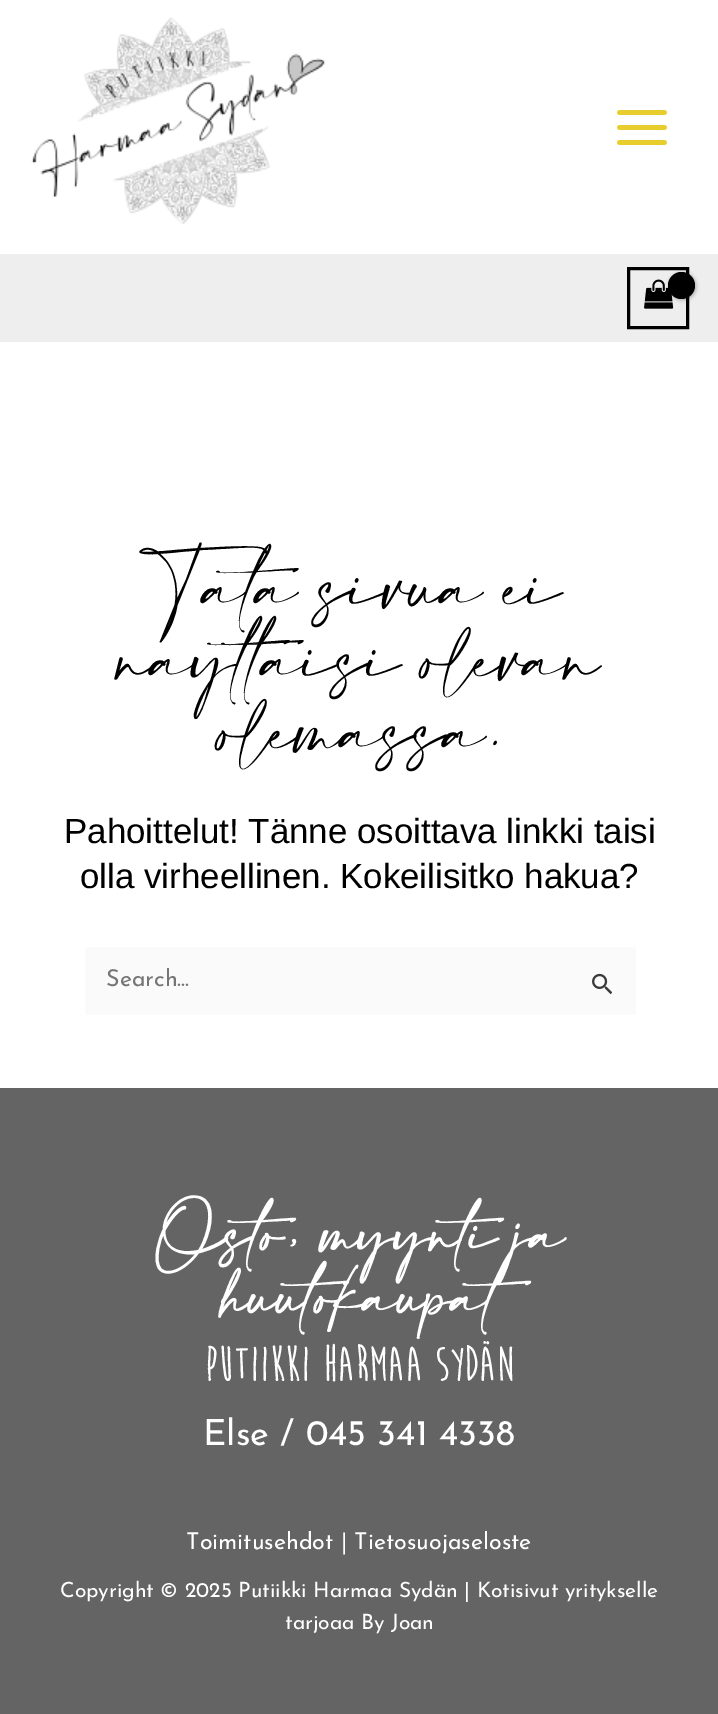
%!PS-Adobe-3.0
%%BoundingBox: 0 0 718 1714
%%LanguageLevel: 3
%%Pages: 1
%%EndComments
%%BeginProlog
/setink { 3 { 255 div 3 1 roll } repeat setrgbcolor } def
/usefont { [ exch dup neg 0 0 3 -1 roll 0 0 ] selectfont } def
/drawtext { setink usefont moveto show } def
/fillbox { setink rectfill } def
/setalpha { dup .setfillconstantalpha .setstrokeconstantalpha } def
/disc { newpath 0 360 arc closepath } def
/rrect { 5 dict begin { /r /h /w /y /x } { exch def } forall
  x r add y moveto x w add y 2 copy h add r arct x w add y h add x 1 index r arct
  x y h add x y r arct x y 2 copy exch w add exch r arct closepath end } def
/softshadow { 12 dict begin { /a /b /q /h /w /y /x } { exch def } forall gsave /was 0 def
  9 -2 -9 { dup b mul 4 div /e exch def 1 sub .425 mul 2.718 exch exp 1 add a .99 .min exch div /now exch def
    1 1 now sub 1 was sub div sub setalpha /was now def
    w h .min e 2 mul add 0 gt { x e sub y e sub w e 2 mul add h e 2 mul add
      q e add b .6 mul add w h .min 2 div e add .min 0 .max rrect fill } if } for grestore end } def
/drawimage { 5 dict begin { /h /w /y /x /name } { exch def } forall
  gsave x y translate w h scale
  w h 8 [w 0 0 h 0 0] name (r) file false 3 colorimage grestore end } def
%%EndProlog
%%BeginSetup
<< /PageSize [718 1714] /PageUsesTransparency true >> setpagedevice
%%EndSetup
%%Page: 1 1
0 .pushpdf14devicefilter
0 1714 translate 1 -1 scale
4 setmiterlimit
0 0 718 1714 255 255 255 fillbox
(assets/img1.rgb) 31 17 294 208 drawimage
(assets/img2.rgb) 617 110 50 35 drawimage
0 254 718 88 238 238 238 fillbox
0 0 0 setink
3 setlinewidth
628.5 268.5 59 59 rectstroke
(assets/img3.rgb) 644 279 30 30 drawimage
669 273 27 27 13.5 2 0.3 softshadow
681.5 285.5 13.5 disc fill
(Tätä sivua ei) 158 606 /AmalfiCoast-Regular 51.25 0 0 0 drawtext
(näyttäisi olevan) 118 678 /AmalfiCoast-Regular 51.25 0 0 0 drawtext
(olemassa.) 218 750 /AmalfiCoast-Regular 51.25 0 0 0 drawtext
(Pahoittelut! Tänne osoittava linkki taisi) 64 843 /LiberationSans-Regular 34.9 0 0 0 drawtext
(olla virheellinen. Kokeilisitko hakua?) 80 888 /LiberationSans-Regular 34.9 0 0 0 drawtext
250 250 250 setink
84 946 553 70 2 rrect gsave fill grestore
255 255 255 setink
2 setlinewidth
stroke
(Search...) 106 986 /JosefinSans-Thin 23.25 117 117 117 drawtext
(assets/img4.rgb) 592 973 20 22 drawimage
0 1088 718 626 100 100 100 fillbox
(Osto, myynti ja) 154 1250 /AmalfiCoast-Bold 42 255 255 255 drawtext
(huutokaupat) 222 1313 /AmalfiCoast-Bold 42 255 255 255 drawtext
(Putiikki harmaa sydän) 204 1381 /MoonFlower-Bold 49.5 255 255 255 drawtext
(Else / 045 341 4338) 203 1445 /JosefinSans-Thin 36 255 255 255 drawtext
(Toimitusehdot | Tietosuojaseloste) 186 1549 /JosefinSans-Thin 23.25 255 255 255 drawtext
(Copyright © 2025 Putiikki Harmaa Sydän | Kotisivut yritykselle) 60 1597 /JosefinSans-Thin 21 255 255 255 drawtext
(tarjoaa By Joan) 285 1629 /JosefinSans-Thin 21 255 255 255 drawtext
.poppdf14devicefilter showpage
%%EOF
